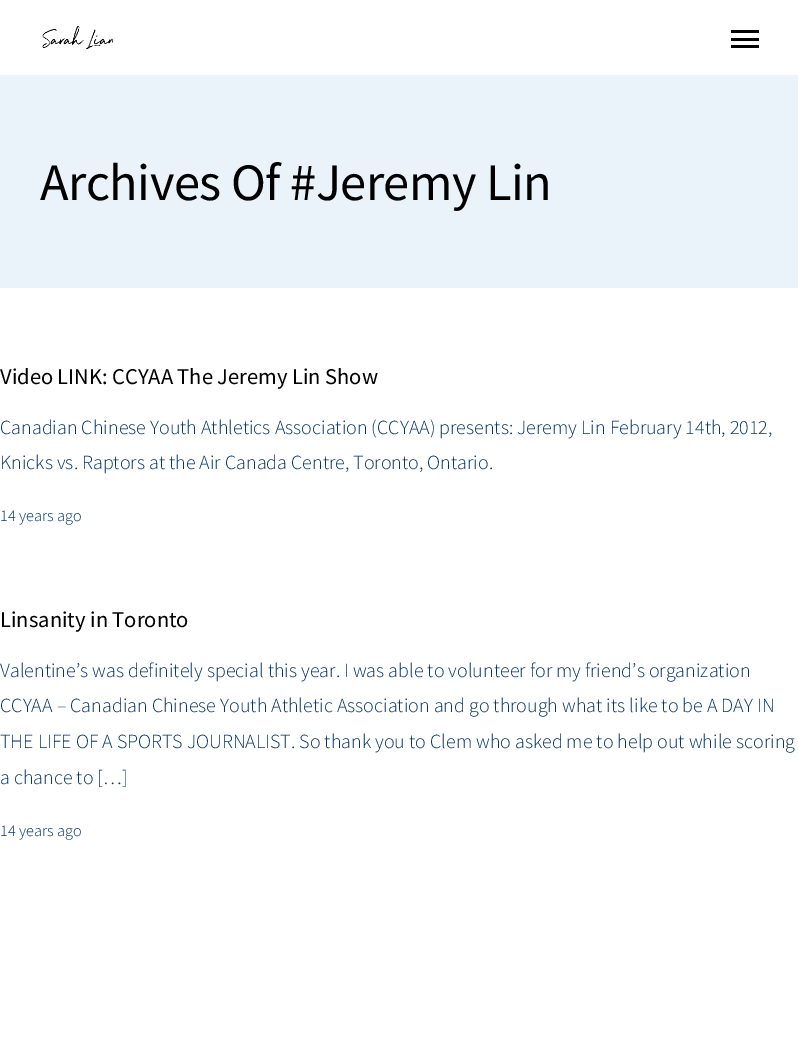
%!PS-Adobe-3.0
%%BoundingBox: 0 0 798 1037
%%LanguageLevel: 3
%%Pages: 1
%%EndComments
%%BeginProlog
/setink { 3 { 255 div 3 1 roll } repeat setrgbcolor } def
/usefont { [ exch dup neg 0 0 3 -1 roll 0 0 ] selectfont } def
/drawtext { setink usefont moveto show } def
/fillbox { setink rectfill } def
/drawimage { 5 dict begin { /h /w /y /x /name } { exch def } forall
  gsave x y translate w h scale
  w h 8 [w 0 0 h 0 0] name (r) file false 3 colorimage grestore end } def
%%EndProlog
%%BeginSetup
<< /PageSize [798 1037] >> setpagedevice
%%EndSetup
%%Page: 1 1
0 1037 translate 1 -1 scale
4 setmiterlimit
0 0 798 1037 255 255 255 fillbox
(assets/img1.rgb) 42 25 72 25 drawimage
731 38 28 3 0 0 0 fillbox
731 30 28 3 0 0 0 fillbox
731 45 28 3 0 0 0 fillbox
0 75 798 213 234 243 249 fillbox
/SourceSansPro-Regular 52.5 usefont
0 0 0 setink
40 200 moveto -0.5 0 (Archives Of #Jeremy Lin) ashow
(Video LINK: CCYAA The Jeremy Lin Show) 0 384 /SourceSansPro-Regular 22.5 0 0 0 drawtext
(Canadian Chinese Youth Athletics Association \(CCYAA\) presents: Jeremy Lin February 14th, 2012,) 0 434 /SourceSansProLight-Light 20 7 55 104 drawtext
(Knicks vs. Raptors at the Air Canada Centre, Toronto, Ontario.) 0 469 /SourceSansProLight-Light 20 7 55 104 drawtext
(14 years ago) 0 521 /SourceSansProLight-Light 16.25 7 55 104 drawtext
(Linsanity in Toronto) 0 627 /SourceSansPro-Regular 22.5 0 0 0 drawtext
(Valentine’s was definitely special this year. I was able to volunteer for my friend’s organization) 0 677 /SourceSansProLight-Light 20 7 55 104 drawtext
(CCYAA – Canadian Chinese Youth Athletic Association and go through what its like to be A DAY IN) 0 712 /SourceSansProLight-Light 20 7 55 104 drawtext
(THE LIFE OF A SPORTS JOURNALIST. So thank you to Clem who asked me to help out while scoring) 0 748 /SourceSansProLight-Light 20 7 55 104 drawtext
(a chance to […]) 0 784 /SourceSansProLight-Light 20 7 55 104 drawtext
(14 years ago) 0 836 /SourceSansProLight-Light 16.25 7 55 104 drawtext
showpage
%%EOF
